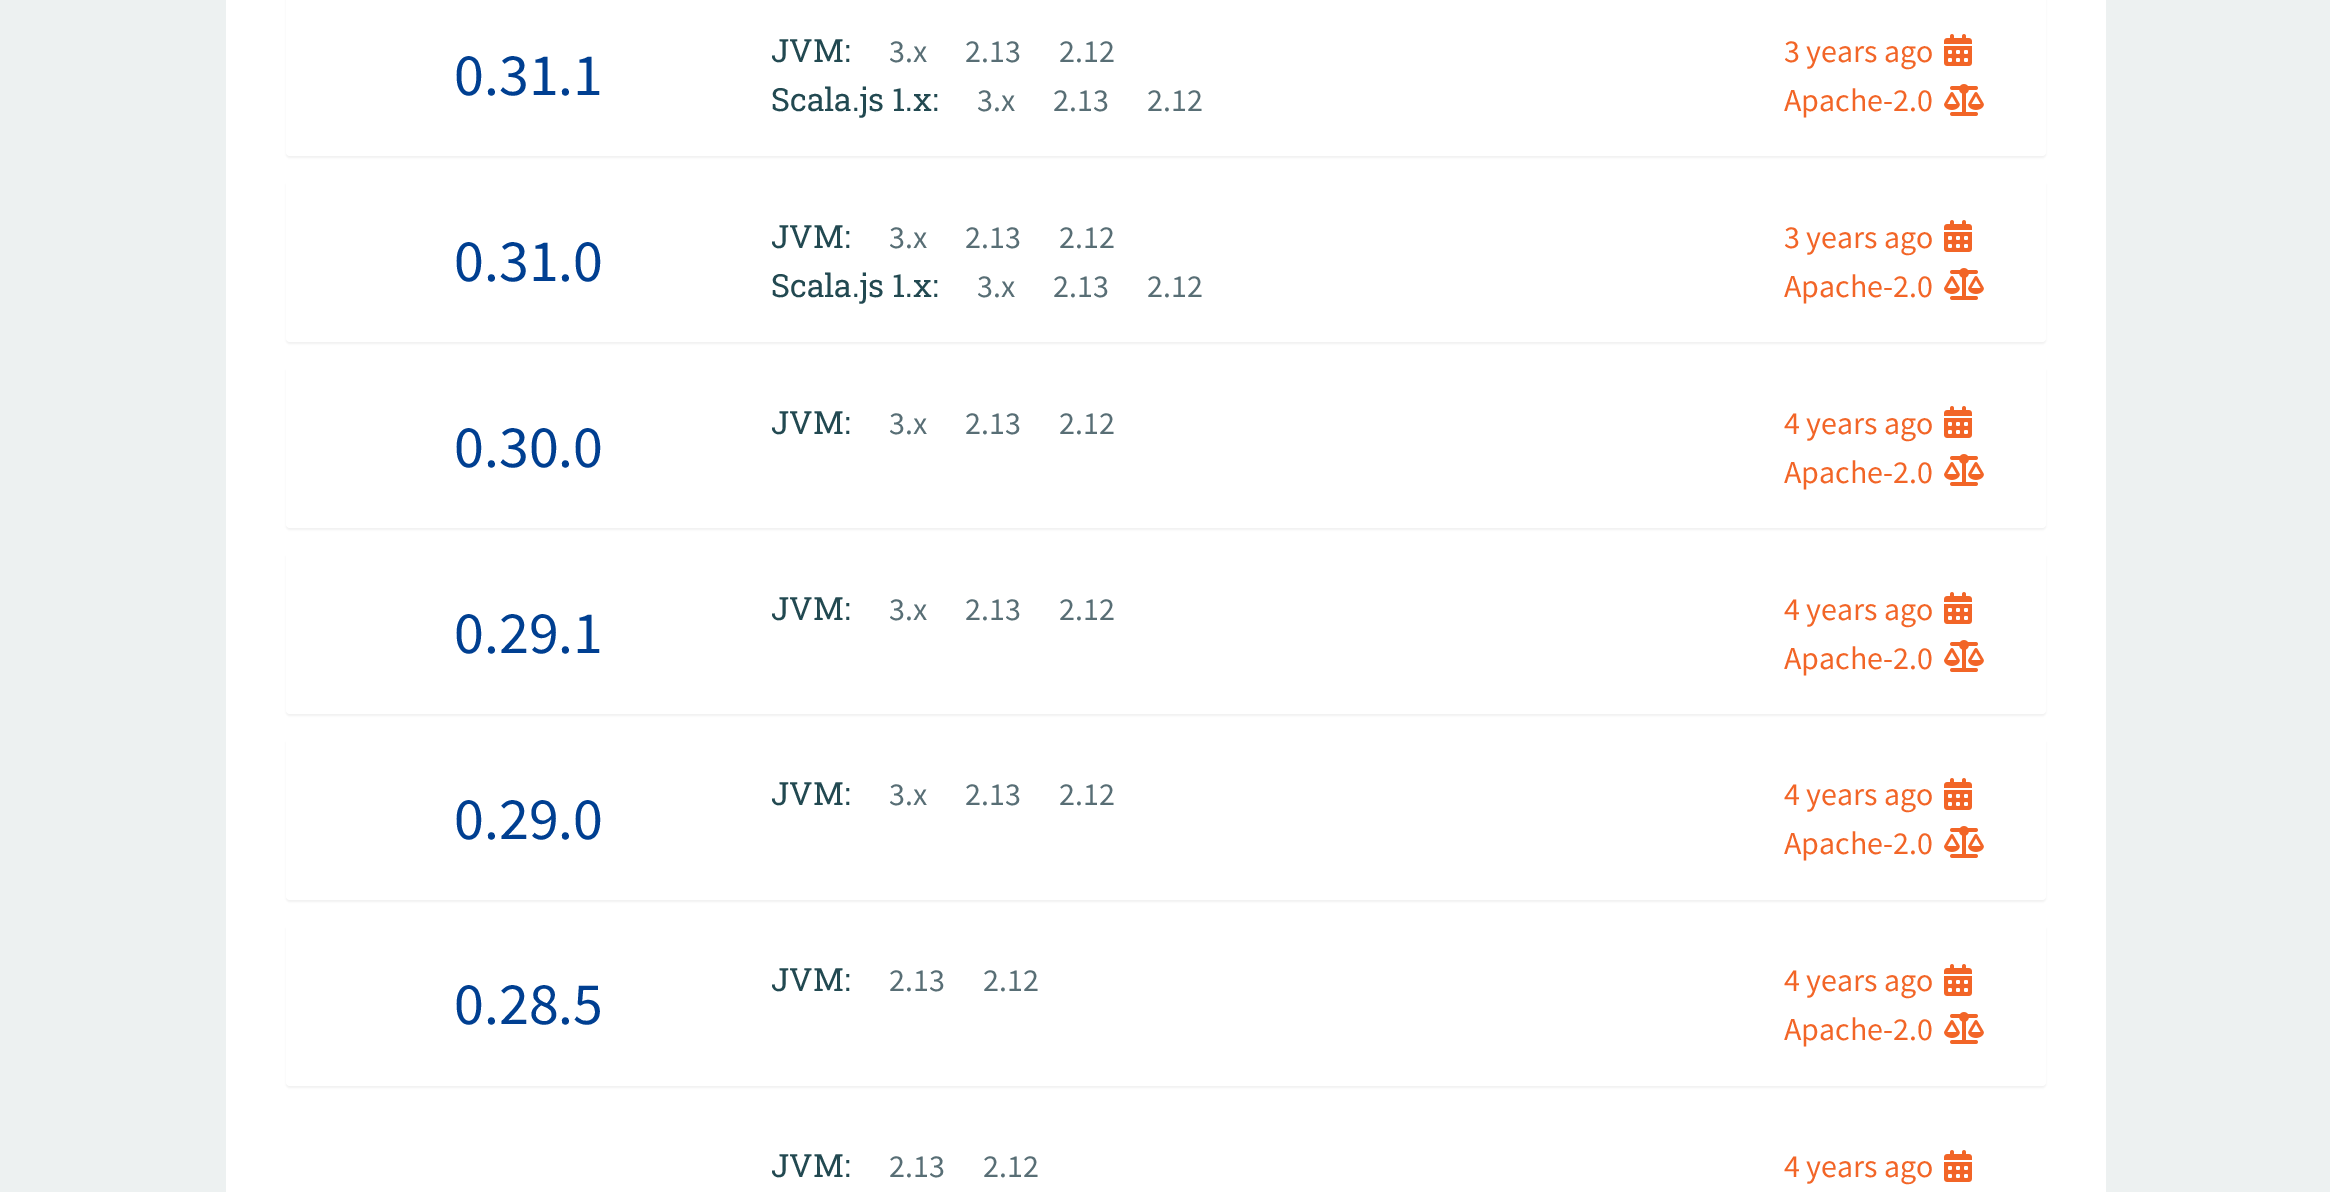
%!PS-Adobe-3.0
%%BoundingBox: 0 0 2330 1192
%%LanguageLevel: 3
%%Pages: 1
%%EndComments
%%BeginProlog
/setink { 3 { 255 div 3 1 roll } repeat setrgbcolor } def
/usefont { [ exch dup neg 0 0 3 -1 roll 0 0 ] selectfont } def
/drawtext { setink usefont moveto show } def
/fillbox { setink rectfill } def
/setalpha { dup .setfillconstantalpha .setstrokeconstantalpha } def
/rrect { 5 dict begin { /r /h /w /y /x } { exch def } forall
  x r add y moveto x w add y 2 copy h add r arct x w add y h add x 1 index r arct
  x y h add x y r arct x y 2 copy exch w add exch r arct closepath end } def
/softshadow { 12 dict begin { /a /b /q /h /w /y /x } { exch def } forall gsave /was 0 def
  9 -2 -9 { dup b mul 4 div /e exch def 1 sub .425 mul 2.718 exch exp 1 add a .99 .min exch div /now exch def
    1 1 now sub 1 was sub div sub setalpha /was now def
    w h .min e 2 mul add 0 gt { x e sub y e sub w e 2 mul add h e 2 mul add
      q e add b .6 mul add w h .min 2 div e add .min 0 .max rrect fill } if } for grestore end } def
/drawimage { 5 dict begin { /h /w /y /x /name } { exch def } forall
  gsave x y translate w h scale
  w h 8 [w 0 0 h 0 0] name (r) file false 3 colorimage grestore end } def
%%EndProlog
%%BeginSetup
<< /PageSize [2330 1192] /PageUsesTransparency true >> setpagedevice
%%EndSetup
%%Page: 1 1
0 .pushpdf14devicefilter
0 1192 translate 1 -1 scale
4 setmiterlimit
0 0 2330 1192 237 241 241 fillbox
226 0 1880 1192 255 255 255 fillbox
0 0 0 setink
286 -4 1760 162 4 1 0.05 softshadow
255 255 255 setink
286 -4 1760 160 4 rrect fill
(0.31.1) 454 95 /SourceSansPro-Regular 60 0 63 145 drawtext
(JVM:) 771 62 /RobotoSlab-Regular 32 34 73 81 drawtext
(3.x) 889 62 /SourceSansPro-Regular 32 88 110 117 drawtext
(2.13) 965 62 /SourceSansPro-Regular 32 88 110 117 drawtext
(2.12) 1059 62 /SourceSansPro-Regular 32 88 110 117 drawtext
(Scala.js 1.x:) 771 111 /RobotoSlab-Regular 32 34 73 81 drawtext
(3.x) 977 111 /SourceSansPro-Regular 32 88 110 117 drawtext
(2.13) 1053 111 /SourceSansPro-Regular 32 88 110 117 drawtext
(2.12) 1147 111 /SourceSansPro-Regular 32 88 110 117 drawtext
(3 years ago) 1784 62 /SourceSansPro-Regular 32 242 101 39 drawtext
(assets/img1.rgb) 1944 34 28 32 drawimage
(Apache-2.0) 1784 111 /SourceSansPro-Regular 32 242 101 39 drawtext
(assets/img2.rgb) 1944 84 40 32 drawimage
0 0 0 setink
286 182 1760 162 4 1 0.05 softshadow
255 255 255 setink
286 180 1760 162 4 rrect fill
(0.31.0) 454 281 /SourceSansPro-Regular 60 0 63 145 drawtext
(JVM:) 771 248 /RobotoSlab-Regular 32 34 73 81 drawtext
(3.x) 889 248 /SourceSansPro-Regular 32 88 110 117 drawtext
(2.13) 965 248 /SourceSansPro-Regular 32 88 110 117 drawtext
(2.12) 1059 248 /SourceSansPro-Regular 32 88 110 117 drawtext
(Scala.js 1.x:) 771 297 /RobotoSlab-Regular 32 34 73 81 drawtext
(3.x) 977 297 /SourceSansPro-Regular 32 88 110 117 drawtext
(2.13) 1053 297 /SourceSansPro-Regular 32 88 110 117 drawtext
(2.12) 1147 297 /SourceSansPro-Regular 32 88 110 117 drawtext
(3 years ago) 1784 248 /SourceSansPro-Regular 32 242 101 39 drawtext
(assets/img1.rgb) 1944 220 28 32 drawimage
(Apache-2.0) 1784 297 /SourceSansPro-Regular 32 242 101 39 drawtext
(assets/img2.rgb) 1944 268 40 32 drawimage
0 0 0 setink
286 368 1760 162 4 1 0.05 softshadow
255 255 255 setink
286 366 1760 162 4 rrect fill
(0.30.0) 454 467 /SourceSansPro-Regular 60 0 63 145 drawtext
(JVM:) 771 434 /RobotoSlab-Regular 32 34 73 81 drawtext
(3.x) 889 434 /SourceSansPro-Regular 32 88 110 117 drawtext
(2.13) 965 434 /SourceSansPro-Regular 32 88 110 117 drawtext
(2.12) 1059 434 /SourceSansPro-Regular 32 88 110 117 drawtext
(4 years ago) 1784 434 /SourceSansPro-Regular 32 242 101 39 drawtext
(assets/img1.rgb) 1944 406 28 32 drawimage
(Apache-2.0) 1784 483 /SourceSansPro-Regular 32 242 101 39 drawtext
(assets/img2.rgb) 1944 454 40 32 drawimage
0 0 0 setink
286 554 1760 162 4 1 0.05 softshadow
255 255 255 setink
286 552 1760 162 4 rrect fill
(0.29.1) 454 653 /SourceSansPro-Regular 60 0 63 145 drawtext
(JVM:) 771 620 /RobotoSlab-Regular 32 34 73 81 drawtext
(3.x) 889 620 /SourceSansPro-Regular 32 88 110 117 drawtext
(2.13) 965 620 /SourceSansPro-Regular 32 88 110 117 drawtext
(2.12) 1059 620 /SourceSansPro-Regular 32 88 110 117 drawtext
(4 years ago) 1784 620 /SourceSansPro-Regular 32 242 101 39 drawtext
(assets/img1.rgb) 1944 592 28 32 drawimage
(Apache-2.0) 1784 669 /SourceSansPro-Regular 32 242 101 39 drawtext
(assets/img2.rgb) 1944 640 40 32 drawimage
0 0 0 setink
286 740 1760 162 4 1 0.05 softshadow
255 255 255 setink
286 738 1760 162 4 rrect fill
(0.29.0) 454 839 /SourceSansPro-Regular 60 0 63 145 drawtext
(JVM:) 771 805 /RobotoSlab-Regular 32 34 73 81 drawtext
(3.x) 889 805 /SourceSansPro-Regular 32 88 110 117 drawtext
(2.13) 965 805 /SourceSansPro-Regular 32 88 110 117 drawtext
(2.12) 1059 805 /SourceSansPro-Regular 32 88 110 117 drawtext
(4 years ago) 1784 805 /SourceSansPro-Regular 32 242 101 39 drawtext
(assets/img1.rgb) 1944 778 28 32 drawimage
(Apache-2.0) 1784 854 /SourceSansPro-Regular 32 242 101 39 drawtext
(assets/img2.rgb) 1944 826 40 32 drawimage
0 0 0 setink
286 926 1760 162 4 1 0.05 softshadow
255 255 255 setink
286 924 1760 162 4 rrect fill
(0.28.5) 454 1024 /SourceSansPro-Regular 60 0 63 145 drawtext
(JVM:) 771 991 /RobotoSlab-Regular 32 34 73 81 drawtext
(2.13) 889 991 /SourceSansPro-Regular 32 88 110 117 drawtext
(2.12) 983 991 /SourceSansPro-Regular 32 88 110 117 drawtext
(4 years ago) 1784 991 /SourceSansPro-Regular 32 242 101 39 drawtext
(assets/img1.rgb) 1944 964 28 32 drawimage
(Apache-2.0) 1784 1040 /SourceSansPro-Regular 32 242 101 39 drawtext
(assets/img2.rgb) 1944 1012 40 32 drawimage
(JVM:) 771 1177 /RobotoSlab-Regular 32 34 73 81 drawtext
(2.13) 889 1177 /SourceSansPro-Regular 32 88 110 117 drawtext
(2.12) 983 1177 /SourceSansPro-Regular 32 88 110 117 drawtext
(4 years ago) 1784 1177 /SourceSansPro-Regular 32 242 101 39 drawtext
(assets/img1.rgb) 1944 1150 28 32 drawimage
.poppdf14devicefilter showpage
%%EOF
